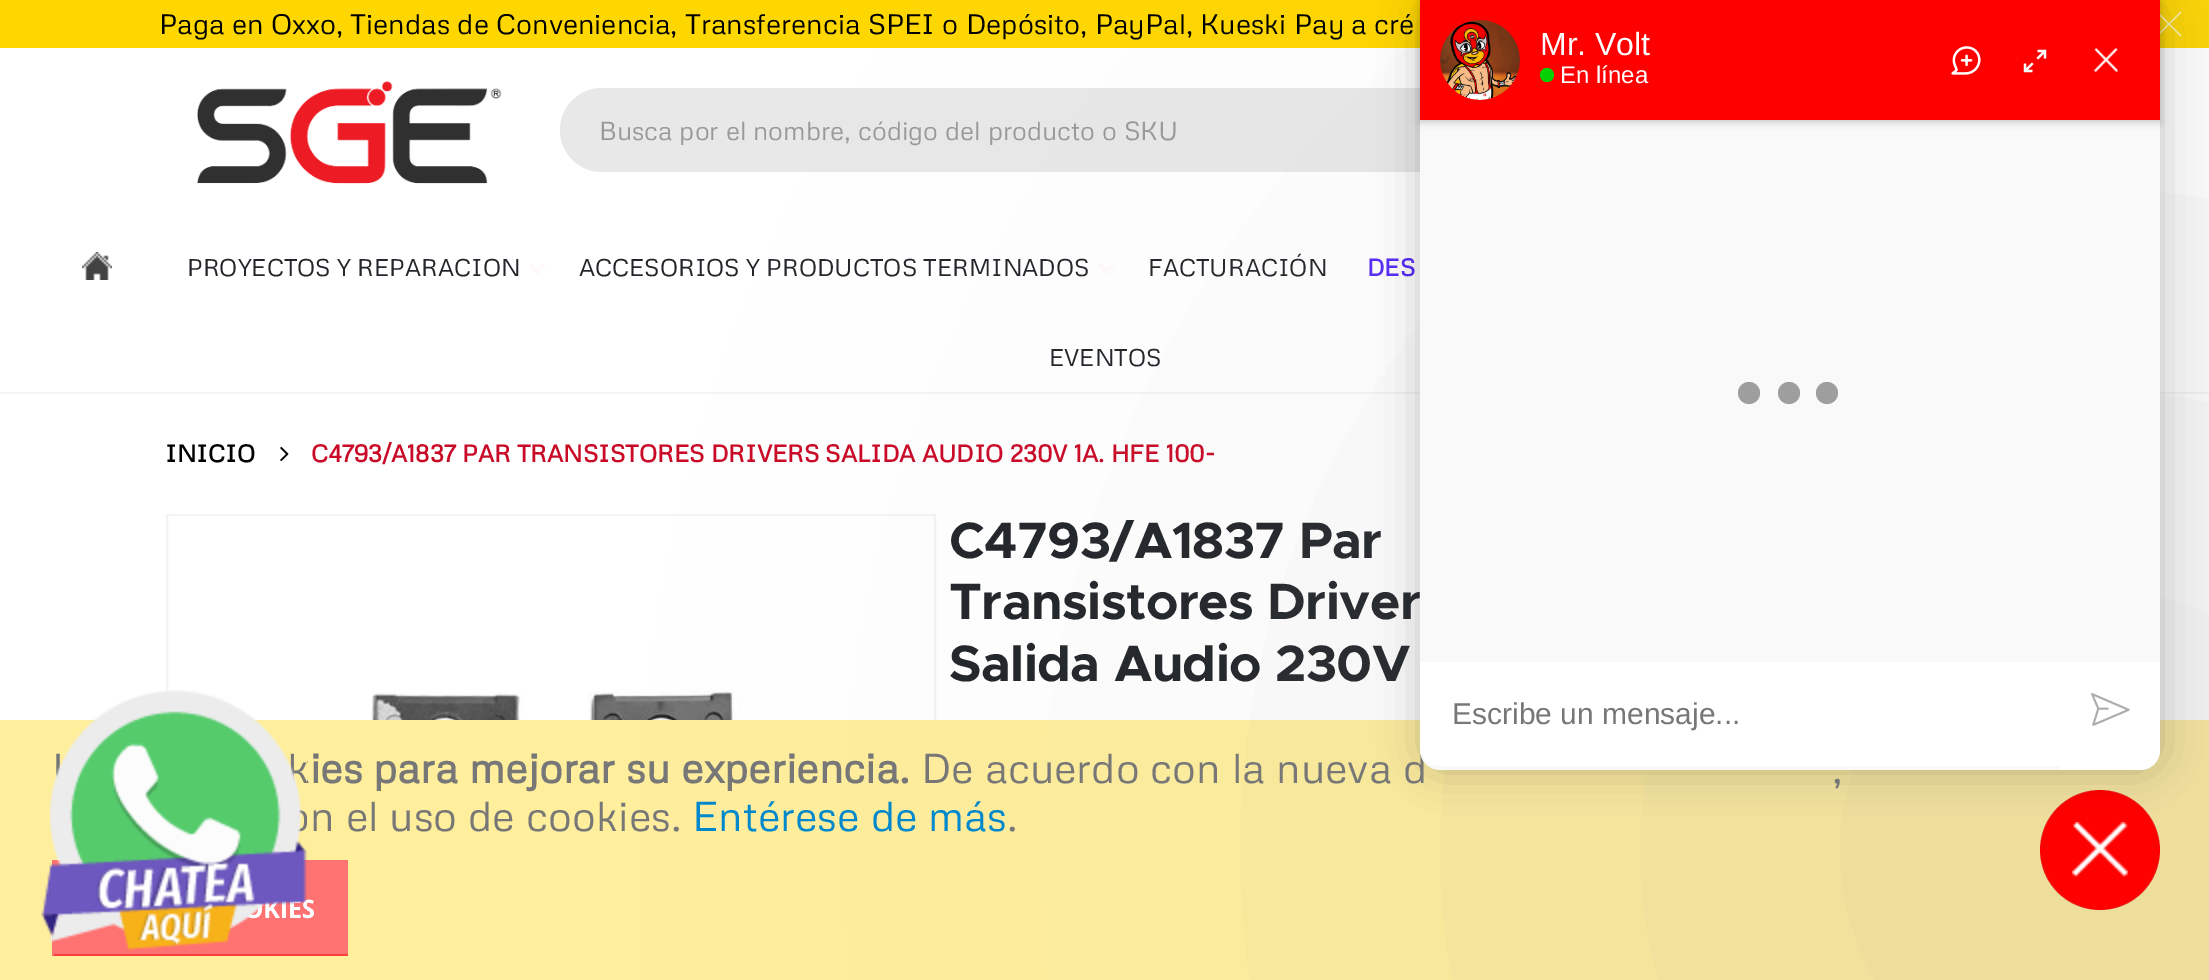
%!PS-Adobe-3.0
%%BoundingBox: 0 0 2209 980
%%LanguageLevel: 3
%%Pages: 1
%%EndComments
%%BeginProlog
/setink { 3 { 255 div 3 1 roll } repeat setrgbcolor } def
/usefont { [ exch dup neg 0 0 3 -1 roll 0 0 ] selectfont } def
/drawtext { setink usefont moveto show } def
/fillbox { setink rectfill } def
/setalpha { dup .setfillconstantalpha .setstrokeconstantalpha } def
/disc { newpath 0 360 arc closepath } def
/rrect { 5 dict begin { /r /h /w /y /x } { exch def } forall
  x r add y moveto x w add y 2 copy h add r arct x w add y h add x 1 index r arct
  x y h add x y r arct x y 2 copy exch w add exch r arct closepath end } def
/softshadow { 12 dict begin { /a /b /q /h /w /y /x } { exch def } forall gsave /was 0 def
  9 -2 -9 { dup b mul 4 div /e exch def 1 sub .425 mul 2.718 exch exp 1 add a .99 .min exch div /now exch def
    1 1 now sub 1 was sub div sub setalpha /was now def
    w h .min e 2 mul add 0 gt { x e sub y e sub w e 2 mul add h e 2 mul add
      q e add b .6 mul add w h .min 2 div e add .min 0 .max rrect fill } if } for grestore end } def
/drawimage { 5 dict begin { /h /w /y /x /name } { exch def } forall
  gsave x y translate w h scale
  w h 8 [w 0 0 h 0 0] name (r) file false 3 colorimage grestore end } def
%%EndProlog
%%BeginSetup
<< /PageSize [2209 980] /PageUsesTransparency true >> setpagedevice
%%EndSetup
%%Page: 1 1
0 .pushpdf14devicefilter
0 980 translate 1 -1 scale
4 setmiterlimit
0 0 2209 980 255 255 255 fillbox
0 0 2209 48 255 215 0 fillbox
(Paga en Oxxo, Tiendas de Conveniencia, Transferencia SPEI o Depósito, PayPal, Kueski Pay a cré) 159 34 /Metrophobic-Regular 28 0 0 0 drawtext
255 243 179 setink
2157.5 11.5 moveto 2181.5 35.5 lineto 2180.5 36.5 lineto 2156.5 12.5 lineto closepath fill
2180.5 11.5 moveto 2181.5 12.5 lineto 2157.5 36.5 lineto 2156.5 35.5 lineto closepath fill
0 392 2209 2 244 244 244 fillbox
(assets/img1.rgb) 197 81 305 103 drawimage
232 232 232 setink
560 88 1152 84 42 rrect fill
(Busca por el nombre, código del producto o SKU) 599 140 /Metrophobic-Regular 26 153 153 153 drawtext
(assets/img2.rgb) 82 252 30 28 drawimage
(PROYECTOS Y REPARACION) 187 276 /Metrophobic-Regular 24 34 37 41 drawtext
255 249 249 setink
543 263 moveto 546 266 lineto 537.5 274.5 lineto 534.5 271.5 lineto closepath fill
531.5 263 moveto 540 271.5 lineto 537.5 274.5 lineto 529 266 lineto closepath fill
(ACCESORIOS Y PRODUCTOS TERMINADOS) 579 276 /Metrophobic-Regular 24 34 37 41 drawtext
255 249 249 setink
1112 263 moveto 1114.5 266 lineto 1106 274.5 lineto 1103.5 271.5 lineto closepath fill
1100.5 263 moveto 1109 271.5 lineto 1106 274.5 lineto 1097.5 266 lineto closepath fill
(FACTURACIÓN) 1148 276 /Metrophobic-Regular 24 34 37 41 drawtext
(DES) 1367 276 /Metrophobic-Bold 24 86 42 245 drawtext
(EVENTOS) 1049 366 /Metrophobic-Regular 24 34 37 41 drawtext
(INICIO) 165 462 /Metrophobic-Bold 24 0 0 0 drawtext
(assets/img3.rgb) 280 446 9 16 drawimage
(C4793/A1837 PAR TRANSISTORES DRIVERS SALIDA AUDIO 230V 1A. HFE 100-) 311 462 /Metrophobic-Bold 24 201 10 39 drawtext
244 244 244 setink
2 setlinewidth
167 515 768 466 rectstroke
(assets/img4.rgb) 370 690 372 30 drawimage
/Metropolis-Bold 51.25 usefont
34 37 41 setink
949 558 moveto -0.5 0 (C4793/A1837 Par) ashow
949 619 moveto -0.5 0 (Transistores Driver) ashow
949 681 moveto -0.5 0 (Salida Audio 230V) ashow
0 720 2209 260 255 238 156 fillbox
(kies para mejorar su experiencia.) 287 783 /Metrophobic-Bold 41.6 119 119 119 drawtext
54 860 294 94 255 114 114 fillbox
52 954 296 2 255 63 63 fillbox
52 860 2 96 255 114 114 fillbox
/OpenSans-Bold 25.5 usefont
255 255 255 setink
243 918 moveto -0.5 0 (OKIES) ashow
(assets/img5.rgb) 41 690 266 260 drawimage
255 0 0 setink
2100 850 60 disc fill
(assets/img6.rgb) 2072 822 56 55 drawimage
gsave
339 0 moveto 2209 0 lineto 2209 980 lineto 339 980 lineto closepath 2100 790 moveto 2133 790 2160 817 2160 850 curveto 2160 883 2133 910 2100 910 curveto 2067 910 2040 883 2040 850 curveto 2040 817 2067 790 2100 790 curveto closepath eoclip newpath
148 149 150 setink
1540 290 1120 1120 560 400 0.2 softshadow
grestore
0 0 0 setink
1420 0 740 770 20 20 0.2 softshadow
(De acuerdo con la nueva d) 921 783 /Metrophobic-Regular 41.6 119 119 119 drawtext
249 249 249 setink
1420 0 740 770 20 rrect fill
0 0 0 setink
1420 2 740 120 0 4 0.2 softshadow
1420 0 740 120 255 0 0 fillbox
(assets/img7.rgb) 1440 20 80 80 drawimage
(Mr. Volt) 1540 55 /LiberationSans-Regular 32 255 255 255 drawtext
5 207 5 setink
1547 75 7 disc fill
(En línea) 1560 83 /LiberationSans-Regular 24 255 255 255 drawtext
(assets/img8.rgb) 1951 46 30 29 drawimage
(assets/img9.rgb) 2023 49 24 24 drawimage
(assets/img10.rgb) 2093 48 25 24 drawimage
158 158 158 setink
1749 393 11 disc fill
1789 393 11 disc fill
1827 393 11 disc fill
255 255 255 setink
1420 662 moveto 2060 662 lineto 2060 766 lineto 1440 766 lineto 1429 766 1420 757 1420 746 curveto closepath fill
(Escribe un mensaje...) 1452 724 /LiberationSans-Regular 30 119 119 119 drawtext
255 255 255 setink
2060 662 moveto 2160 662 lineto 2160 750 lineto 2160 761 2151 770 2140 770 curveto 2060 770 lineto closepath fill
(assets/img11.rgb) 2091 693 39 33 drawimage
(,) 1832 783 /Metrophobic-Regular 41.6 119 119 119 drawtext
(n el uso de cookies.) 310 831 /Metrophobic-Regular 41.6 119 119 119 drawtext
(Entérese de más) 692 831 /Metrophobic-Regular 41.6 0 136 204 drawtext
(.) 1007 831 /Metrophobic-Regular 41.6 119 119 119 drawtext
.poppdf14devicefilter showpage
%%EOF
